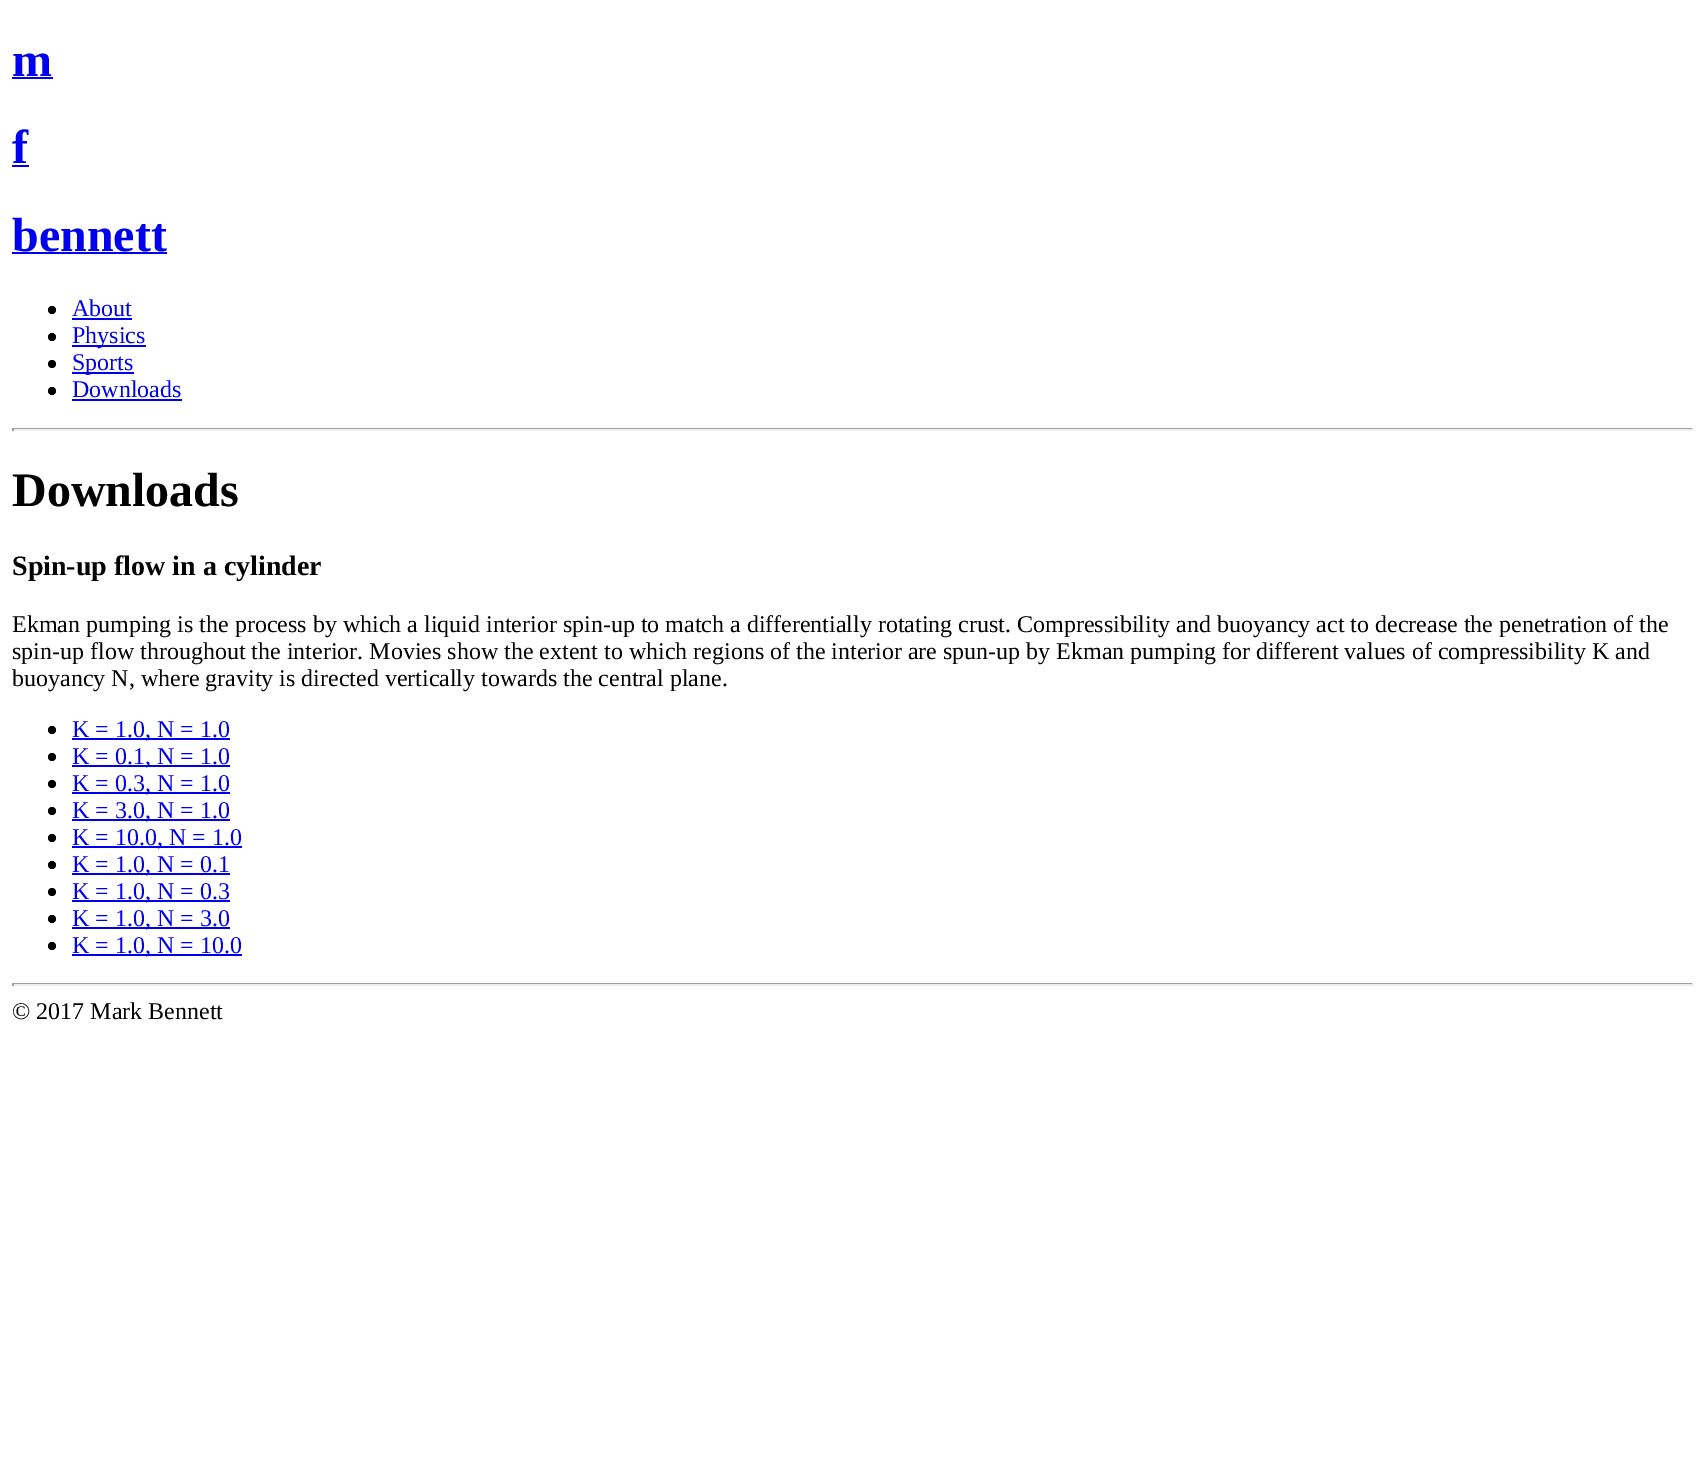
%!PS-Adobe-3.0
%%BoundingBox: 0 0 1705 1461
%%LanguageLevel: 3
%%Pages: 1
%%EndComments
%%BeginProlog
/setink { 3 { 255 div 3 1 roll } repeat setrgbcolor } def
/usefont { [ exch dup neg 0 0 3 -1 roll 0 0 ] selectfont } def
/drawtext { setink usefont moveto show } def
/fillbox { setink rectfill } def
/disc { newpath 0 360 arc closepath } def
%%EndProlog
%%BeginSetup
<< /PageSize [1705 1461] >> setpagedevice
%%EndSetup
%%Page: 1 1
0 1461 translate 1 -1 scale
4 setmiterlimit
0 0 1705 1461 255 255 255 fillbox
(m) 12 76 /LiberationSerif-Bold 48 0 0 238 drawtext
12 77 41 2 0 0 238 fillbox
(f) 12 163 /LiberationSerif-Bold 48 0 0 238 drawtext
12 165 17 2 0 0 238 fillbox
(bennett) 12 251 /LiberationSerif-Bold 48 0 0 238 drawtext
12 252 155 2 0 0 238 fillbox
0 0 0 setink
52 310 4 disc fill
(About) 72 316 /LiberationSerif-Regular 24 0 0 238 drawtext
72 318 60 2 0 0 238 fillbox
0 0 0 setink
52 337 4 disc fill
72 345 74 2 0 0 238 fillbox
(Physics) 72 343 /LiberationSerif-Regular 24 0 0 238 drawtext
0 0 0 setink
52 364 4 disc fill
72 372 62 2 0 0 238 fillbox
(Sports) 72 370 /LiberationSerif-Regular 24 0 0 238 drawtext
0 0 0 setink
52 391 4 disc fill
(Downloads) 72 397 /LiberationSerif-Regular 24 0 0 238 drawtext
72 399 110 2 0 0 238 fillbox
12 428 1682 1 159 159 159 fillbox
1692 428 2 3 238 238 238 fillbox
12 429 1682 2 238 238 238 fillbox
12 428 2 3 159 159 159 fillbox
(Downloads) 12 506 /LiberationSerif-Bold 48 0 0 0 drawtext
(Spin-up flow in a cylinder) 12 575 /LiberationSerif-Bold 28 0 0 0 drawtext
(Ekman pumping is the process by which a liquid interior spin-up to match a differentially rotating crust. Compressibility and buoyancy act to decrease the penetration of the) 12 632 /LiberationSerif-Regular 24 0 0 0 drawtext
(spin-up flow throughout the interior. Movies show the extent to which regions of the interior are spun-up by Ekman pumping for different values of compressibility K and) 12 659 /LiberationSerif-Regular 24 0 0 0 drawtext
(buoyancy N, where gravity is directed vertically towards the central plane.) 12 686 /LiberationSerif-Regular 24 0 0 0 drawtext
52 730 4 disc fill
72 738 158 2 0 0 238 fillbox
(K = 1.0, N = 1.0) 72 737 /LiberationSerif-Regular 24 0 0 238 drawtext
0 0 0 setink
52 757 4 disc fill
72 765 158 2 0 0 238 fillbox
(K = 0.1, N = 1.0) 72 764 /LiberationSerif-Regular 24 0 0 238 drawtext
0 0 0 setink
52 784 4 disc fill
72 792 158 2 0 0 238 fillbox
(K = 0.3, N = 1.0) 72 791 /LiberationSerif-Regular 24 0 0 238 drawtext
0 0 0 setink
52 811 4 disc fill
72 819 158 2 0 0 238 fillbox
(K = 3.0, N = 1.0) 72 818 /LiberationSerif-Regular 24 0 0 238 drawtext
0 0 0 setink
52 838 4 disc fill
72 846 170 2 0 0 238 fillbox
(K = 10.0, N = 1.0) 72 845 /LiberationSerif-Regular 24 0 0 238 drawtext
0 0 0 setink
52 865 4 disc fill
72 873 158 2 0 0 238 fillbox
(K = 1.0, N = 0.1) 72 872 /LiberationSerif-Regular 24 0 0 238 drawtext
0 0 0 setink
52 892 4 disc fill
72 900 158 2 0 0 238 fillbox
(K = 1.0, N = 0.3) 72 899 /LiberationSerif-Regular 24 0 0 238 drawtext
0 0 0 setink
52 919 4 disc fill
72 927 158 2 0 0 238 fillbox
(K = 1.0, N = 3.0) 72 926 /LiberationSerif-Regular 24 0 0 238 drawtext
0 0 0 setink
52 946 4 disc fill
72 954 170 2 0 0 238 fillbox
(K = 1.0, N = 10.0) 72 953 /LiberationSerif-Regular 24 0 0 238 drawtext
12 983 1682 1 159 159 159 fillbox
1692 983 2 3 238 238 238 fillbox
12 984 1682 2 238 238 238 fillbox
12 983 2 3 159 159 159 fillbox
(© 2017 Mark Bennett) 12 1019 /LiberationSerif-Regular 24 0 0 0 drawtext
showpage
%%EOF
